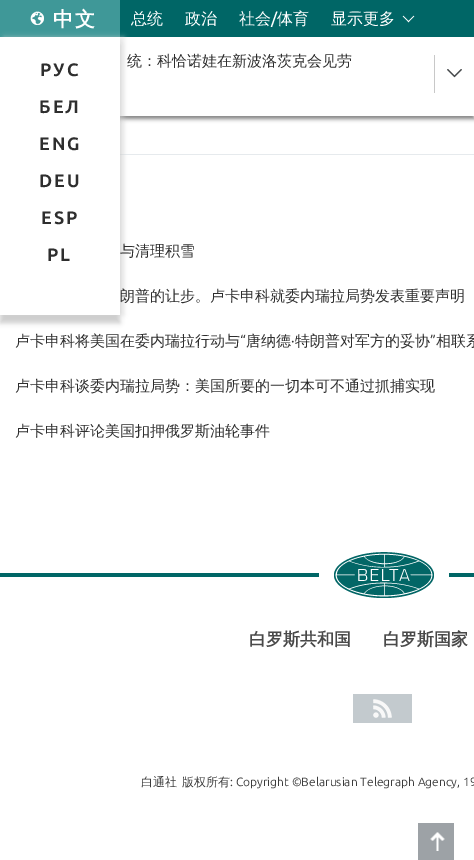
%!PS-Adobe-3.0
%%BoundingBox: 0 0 474 860
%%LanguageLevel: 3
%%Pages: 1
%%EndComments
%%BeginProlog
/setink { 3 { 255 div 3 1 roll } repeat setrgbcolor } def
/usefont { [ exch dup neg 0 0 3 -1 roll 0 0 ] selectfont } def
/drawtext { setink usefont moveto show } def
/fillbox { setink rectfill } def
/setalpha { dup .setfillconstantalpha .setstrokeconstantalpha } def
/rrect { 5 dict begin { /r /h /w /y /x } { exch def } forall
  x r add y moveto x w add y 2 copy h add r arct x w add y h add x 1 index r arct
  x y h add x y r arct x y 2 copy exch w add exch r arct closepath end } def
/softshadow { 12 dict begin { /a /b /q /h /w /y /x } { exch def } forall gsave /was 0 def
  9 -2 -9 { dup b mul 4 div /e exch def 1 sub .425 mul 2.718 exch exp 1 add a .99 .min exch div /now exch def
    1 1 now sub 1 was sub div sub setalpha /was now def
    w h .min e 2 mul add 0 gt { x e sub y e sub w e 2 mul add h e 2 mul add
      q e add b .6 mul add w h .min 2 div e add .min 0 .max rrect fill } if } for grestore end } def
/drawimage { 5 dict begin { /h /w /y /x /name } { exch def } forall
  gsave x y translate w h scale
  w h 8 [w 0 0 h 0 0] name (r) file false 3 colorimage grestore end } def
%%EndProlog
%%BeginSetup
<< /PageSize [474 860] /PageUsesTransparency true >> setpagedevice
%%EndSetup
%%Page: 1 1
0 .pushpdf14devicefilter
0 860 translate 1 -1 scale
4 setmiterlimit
0 0 474 860 255 255 255 fillbox
100 100 100 setink
0 40 474 79 0 2 0.8 softshadow
120 0 354 37 0 102 102 fillbox
0 0 120 37 63 152 152 fillbox
(assets/img1.rgb) 30 11 14 14 drawimage
/WenQuanYiZenHei-Bold 20 usefont
255 255 255 setink
53 26 moveto 2 0 (中文) ashow
120 37 354 79 255 255 255 fillbox
120 154 354 1 230 234 237 fillbox
152 152 152 setink
0 45 120 278 0 2.5 0.5 softshadow
212 212 212 setink
4 37 120 278 0 2.5 0.5 softshadow
0 37 120 278 255 255 255 fillbox
/Ubuntu-Bold 18 usefont
46 46 46 setink
40 76 moveto 2 0 (РУС) ashow
39 113 moveto 2 0 (БЕЛ) ashow
39 150 moveto 2 0 (ENG) ashow
39 187 moveto 2 0 (DEU) ashow
41 224 moveto 2 0 (ESP) ashow
47 261 moveto 2 0 (PL) ashow
(总统) 131 24 /WenQuanYiZenHei-Medium 16 255 255 255 drawtext
(政治) 185 24 /WenQuanYiZenHei-Medium 16 255 255 255 drawtext
(社会) 239 24 /WenQuanYiZenHei-Medium 16 255 255 255 drawtext
(/) 271 24 /Ubuntu-Medium 16 255 255 255 drawtext
(体育) 277 24 /WenQuanYiZenHei-Medium 16 255 255 255 drawtext
(显示更多) 331 24 /WenQuanYiZenHei-Medium 16 255 255 255 drawtext
(assets/img2.rgb) 402 15 13 8 drawimage
(统：科恰诺娃在新波洛茨克会见劳) 127 66 /WenQuanYiZenHei-Medium 15 46 46 46 drawtext
(assets/img3.rgb) 447 69 15 9 drawimage
434 55 1 38 200 200 200 fillbox
(与清理积雪) 120 256 /WenQuanYiZenHei-Medium 15 46 46 46 drawtext
(朗普的让步。卢卡申科就委内瑞拉局势发表重要声明) 120 301 /WenQuanYiZenHei-Medium 15 46 46 46 drawtext
(卢卡申科将美国在委内瑞拉行动与) 15 346 /WenQuanYiZenHei-Medium 15 46 46 46 drawtext
(“) 240 346 /Ubuntu-Regular 15 46 46 46 drawtext
(唐纳德) 246 346 /WenQuanYiZenHei-Medium 15 46 46 46 drawtext
(特朗普对军方的妥协) 295 346 /WenQuanYiZenHei-Medium 15 46 46 46 drawtext
(”) 430 346 /Ubuntu-Regular 15 46 46 46 drawtext
(相联系) 436 346 /WenQuanYiZenHei-Medium 15 46 46 46 drawtext
(·) 291 346 /Ubuntu-Regular 15 46 46 46 drawtext
(卢卡申科谈委内瑞拉局势：美国所要的一切本可不通过抓捕实现) 15 391 /WenQuanYiZenHei-Medium 15 46 46 46 drawtext
(卢卡申科评论美国扣押俄罗斯油轮事件) 15 436 /WenQuanYiZenHei-Medium 15 46 46 46 drawtext
0 573 474 4 0 102 102 fillbox
319 573 130 4 255 255 255 fillbox
(assets/img4.rgb) 334 552 100 46 drawimage
(白罗斯共和国) 249 645 /WenQuanYiZenHei-Bold 17 73 73 73 drawtext
(白罗斯国家) 383 645 /WenQuanYiZenHei-Bold 17 73 73 73 drawtext
(assets/img5.rgb) 353 694 59 29 drawimage
(白通社) 141 786 /WenQuanYiZenHei-Medium 12 60 60 60 drawtext
(版权所有) 182 786 /WenQuanYiZenHei-Medium 12 60 60 60 drawtext
(: Copyright ©Belarusian Telegraph Agency, 19) 230 786 /Ubuntu-Regular 12 60 60 60 drawtext
(assets/img6.rgb) 418 823 36 37 drawimage
.poppdf14devicefilter showpage
%%EOF
